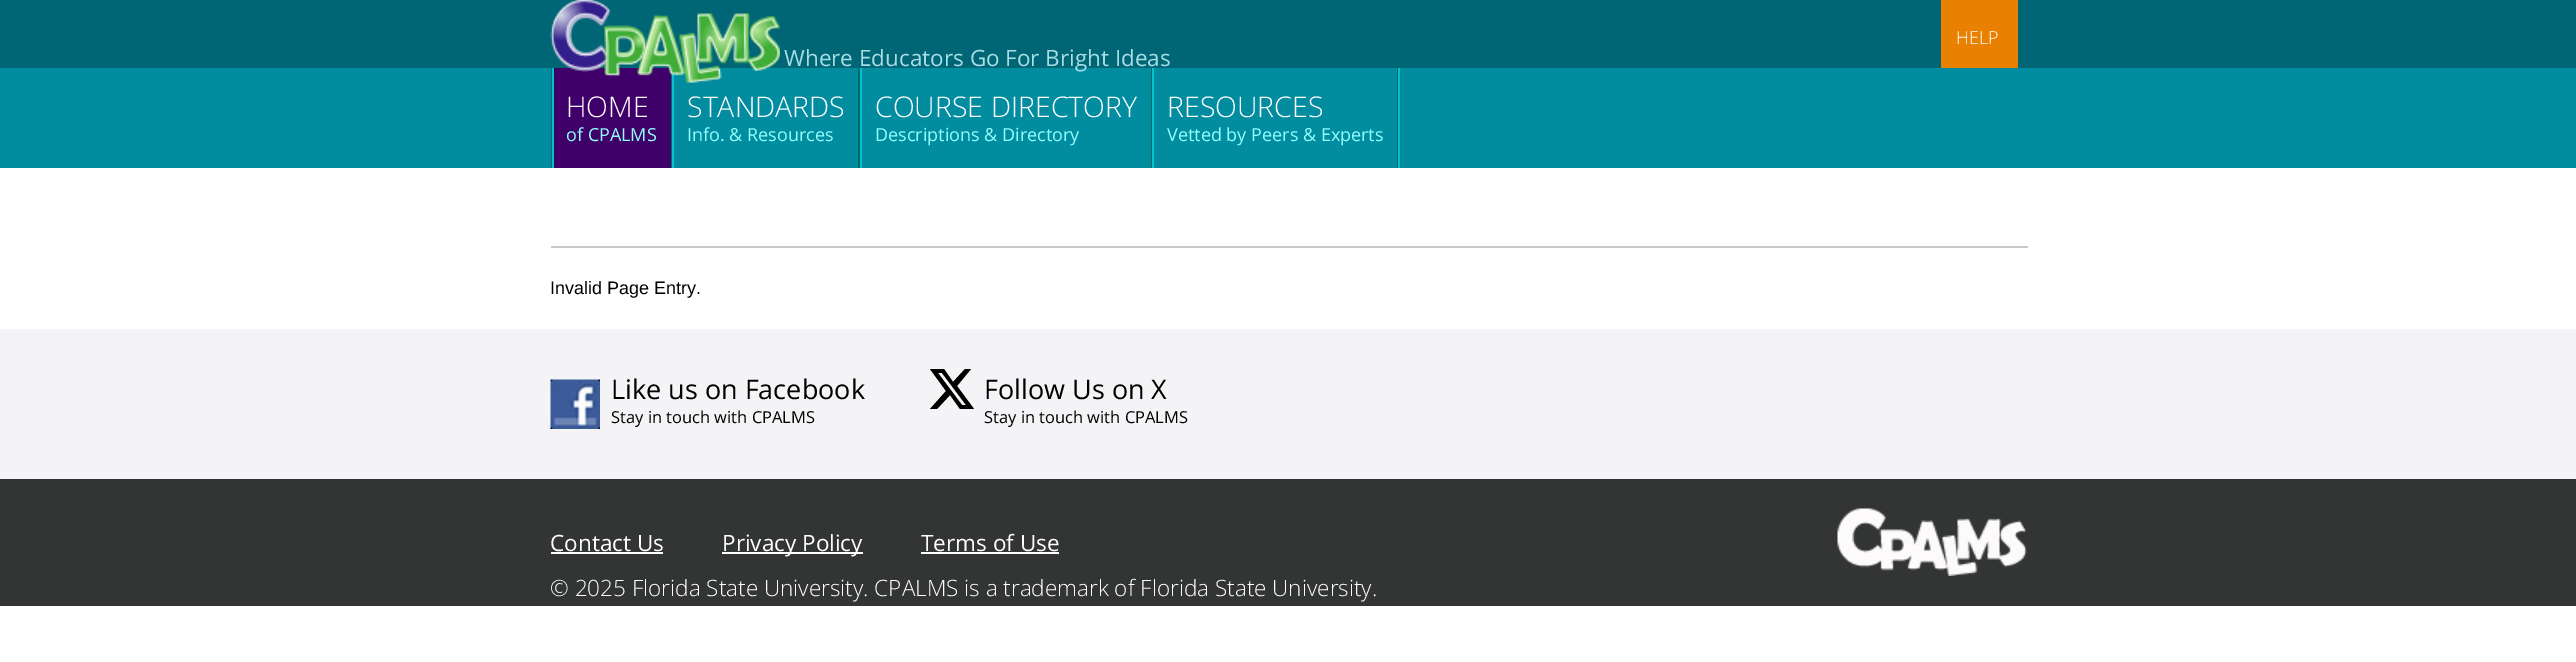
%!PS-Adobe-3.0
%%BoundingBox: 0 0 2576 662
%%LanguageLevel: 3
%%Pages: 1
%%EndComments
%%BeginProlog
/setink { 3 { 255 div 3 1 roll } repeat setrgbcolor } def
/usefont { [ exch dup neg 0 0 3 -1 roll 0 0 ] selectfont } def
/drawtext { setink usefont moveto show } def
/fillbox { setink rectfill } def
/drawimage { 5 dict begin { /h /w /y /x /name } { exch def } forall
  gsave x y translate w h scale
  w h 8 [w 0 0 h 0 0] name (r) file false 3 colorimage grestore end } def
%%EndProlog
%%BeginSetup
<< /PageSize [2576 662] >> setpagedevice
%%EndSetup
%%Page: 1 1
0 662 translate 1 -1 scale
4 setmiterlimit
0 0 2576 662 255 255 255 fillbox
0 0 2576 68 0 102 117 fillbox
1941 0 77 68 233 128 0 fillbox
(HELP) 1956 44 /OpenSans-Light 18 255 255 255 drawtext
0 68 2576 100 2 140 160 fillbox
551 68 1 100 0 106 106 fillbox
554 68 117 100 64 0 105 fillbox
671 68 1 100 0 106 106 fillbox
552 68 2 100 1 194 205 fillbox
672 68 2 100 1 194 205 fillbox
(assets/img1.rgb) 550 0 230 83 drawimage
858 68 2 100 0 106 106 fillbox
1151 68 1 100 0 106 106 fillbox
860 68 2 100 1 194 205 fillbox
1152 68 2 100 1 194 205 fillbox
(Where Educators Go For Bright Ideas) 784 66 /OpenSans-Regular 22.5 166 222 230 drawtext
1398 68 2 100 1 194 205 fillbox
(HOME) 566 117 /OpenSans-Light 28.5 255 255 255 drawtext
(of CPALMS) 566 141 /OpenSans-Regular 18 146 255 255 drawtext
(STANDARDS) 687 117 /OpenSans-Light 28.5 255 255 255 drawtext
(Info. & Resources) 687 141 /OpenSans-Regular 18 146 255 255 drawtext
(COURSE DIRECTORY) 875 117 /OpenSans-Light 28.5 255 255 255 drawtext
(Descriptions & Directory) 875 141 /OpenSans-Regular 18 146 255 255 drawtext
1397 68 1 100 0 106 106 fillbox
(RESOURCES) 1167 117 /OpenSans-Light 28.5 255 255 255 drawtext
(Vetted by Peers & Experts) 1167 141 /OpenSans-Regular 18 146 255 255 drawtext
551 246 1477 2 199 200 202 fillbox
(Invalid Page Entry.) 550 294 /LiberationSans-Regular 18 0 0 0 drawtext
0 329 2576 150 244 244 247 fillbox
(assets/img2.rgb) 550 379 50 50 drawimage
(Like us on Facebook) 611 399 /OpenSans-Regular 27 0 0 0 drawtext
(Stay in touch with CPALMS) 611 423 /OpenSans-Regular 16.5 0 0 0 drawtext
965 369 moveto 971 369 lineto 957 386 lineto 974 409 lineto 960 409 lineto 950 395 lineto 937 409 lineto 930 409 lineto 946 391 lineto 930 369 lineto 944 369 lineto 953 382 lineto closepath 962 405 moveto 966 405 lineto 942 373 lineto 938 373 lineto closepath fill
(Follow Us on X) 984 399 /OpenSans-Regular 27 0 0 0 drawtext
(Stay in touch with CPALMS) 984 423 /OpenSans-Regular 16.5 0 0 0 drawtext
0 479 2576 127 51 52 52 fillbox
(Contact Us) 550 551 /OpenSans-Regular 22.5 255 255 255 drawtext
551 552 112 2 255 255 255 fillbox
722 552 141 2 255 255 255 fillbox
(Privacy Policy) 722 551 /OpenSans-Regular 22.5 255 255 255 drawtext
(Terms of Use) 921 551 /OpenSans-Regular 22.5 255 255 255 drawtext
921 552 138 2 255 255 255 fillbox
(© 2025 Florida State University. CPALMS is a trademark of Florida State University.) 550 596 /OpenSans-Light 22.5 255 255 255 drawtext
(assets/img3.rgb) 1837 508 190 68 drawimage
showpage
%%EOF
